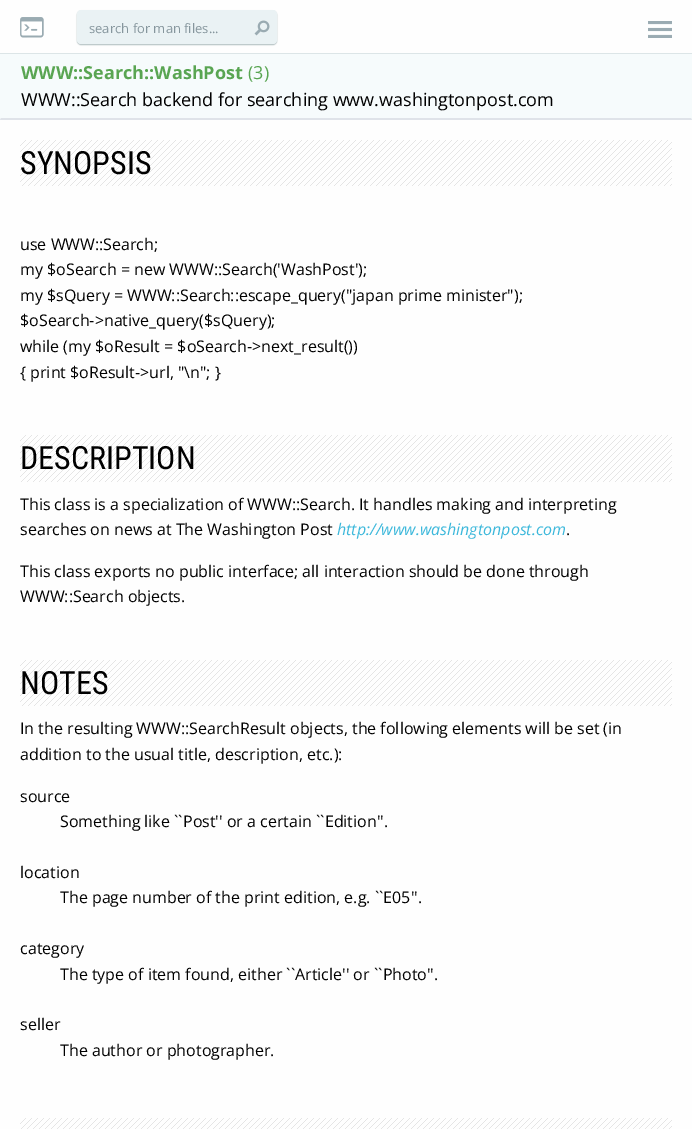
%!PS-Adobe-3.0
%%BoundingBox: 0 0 692 1129
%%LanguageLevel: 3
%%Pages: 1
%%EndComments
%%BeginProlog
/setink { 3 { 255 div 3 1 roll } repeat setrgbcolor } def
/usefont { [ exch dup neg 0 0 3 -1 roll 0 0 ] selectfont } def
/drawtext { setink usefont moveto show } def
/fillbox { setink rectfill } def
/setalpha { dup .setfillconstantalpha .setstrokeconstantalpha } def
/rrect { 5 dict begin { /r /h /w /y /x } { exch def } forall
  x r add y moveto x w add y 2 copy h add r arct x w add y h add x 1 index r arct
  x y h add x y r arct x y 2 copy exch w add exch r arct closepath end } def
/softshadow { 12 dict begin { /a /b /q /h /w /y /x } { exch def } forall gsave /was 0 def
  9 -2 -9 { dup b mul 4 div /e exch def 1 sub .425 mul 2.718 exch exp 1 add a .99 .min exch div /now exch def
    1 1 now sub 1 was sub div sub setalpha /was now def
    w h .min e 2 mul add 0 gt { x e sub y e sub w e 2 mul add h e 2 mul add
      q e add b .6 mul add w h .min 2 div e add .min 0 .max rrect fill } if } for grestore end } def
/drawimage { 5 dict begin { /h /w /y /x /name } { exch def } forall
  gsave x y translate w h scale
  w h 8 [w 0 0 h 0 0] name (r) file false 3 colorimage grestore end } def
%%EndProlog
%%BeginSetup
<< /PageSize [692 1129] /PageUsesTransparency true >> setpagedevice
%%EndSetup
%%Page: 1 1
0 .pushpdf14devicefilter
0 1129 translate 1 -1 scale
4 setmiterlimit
0 0 692 1129 254 254 254 fillbox
0 53 692 1 220 229 231 fillbox
(assets/img1.rgb) 20 17 24 21 drawimage
6 47 55 setink
77 11 200 34 4 0.5 0.3 softshadow
234 242 244 setink
77 10 200 34 4 rrect fill
(search for man files...) 89 33 /OpenSans-Regular 13 134 150 157 drawtext
(assets/img2.rgb) 254 20 16 16 drawimage
(assets/img3.rgb) 648 21 24 17 drawimage
0 54 692 66 246 251 252 fillbox
223 227 233 setink
692 120 moveto 0 120 lineto 1 118 lineto 691 118 lineto closepath fill
(WWW::Search::WashPost) 21 79 /OpenSans-Bold 18 89 165 82 drawtext
(\(3\)) 248 79 /OpenSans-Regular 18 89 165 82 drawtext
(WWW::Search backend for searching www.washingtonpost.com) 21 106 /OpenSans-Regular 18 0 0 0 drawtext
(assets/img4.rgb) 20 140 652 46 drawimage
(SYNOPSIS) 20 174 /RobotoCondensed-Regular 32 0 0 0 drawtext
(use WWW::Search;) 20 250 /OpenSans-Regular 16 0 0 0 drawtext
(my $oSearch = new WWW::Search\('WashPost'\);) 20 275 /OpenSans-Regular 16 0 0 0 drawtext
(my $sQuery = WWW::Search::escape_query\("japan prime minister"\);) 20 301 /OpenSans-Regular 16 0 0 0 drawtext
($oSearch->native_query\($sQuery\);) 20 326 /OpenSans-Regular 16 0 0 0 drawtext
(while \(my $oResult = $oSearch->next_result\(\)\)) 20 352 /OpenSans-Regular 16 0 0 0 drawtext
({ print $oResult->url, "\\n"; }) 20 378 /OpenSans-Regular 16 0 0 0 drawtext
(assets/img5.rgb) 20 435 652 47 drawimage
(DESCRIPTION) 20 469 /RobotoCondensed-Regular 32 0 0 0 drawtext
(This class is a specialization of WWW::Search. It handles making and interpreting) 20 510 /OpenSans-Regular 16 0 0 0 drawtext
(searches on news at The Washington Post) 20 535 /OpenSans-Regular 16 0 0 0 drawtext
(http://www.washingtonpost.com) 337 535 /OpenSans-Italic 16 61 184 219 drawtext
(.) 566 535 /OpenSans-Regular 16 0 0 0 drawtext
(This class exports no public interface; all interaction should be done through) 20 577 /OpenSans-Regular 16 0 0 0 drawtext
(WWW::Search objects.) 20 602 /OpenSans-Regular 16 0 0 0 drawtext
(assets/img4.rgb) 20 660 652 46 drawimage
(NOTES) 20 694 /RobotoCondensed-Regular 32 0 0 0 drawtext
(In the resulting WWW::SearchResult objects, the following elements will be set \(in) 20 734 /OpenSans-Regular 16 0 0 0 drawtext
(addition to the usual title, description, etc.\):) 20 760 /OpenSans-Regular 16 0 0 0 drawtext
(source) 20 802 /OpenSans-Regular 16 0 0 0 drawtext
(Something like ``Post'' or a certain ``Edition''.) 60 827 /OpenSans-Regular 16 0 0 0 drawtext
(location) 20 878 /OpenSans-Regular 16 0 0 0 drawtext
(The page number of the print edition, e.g. ``E05''.) 60 903 /OpenSans-Regular 16 0 0 0 drawtext
(category) 20 954 /OpenSans-Regular 16 0 0 0 drawtext
(The type of item found, either ``Article'' or ``Photo''.) 60 980 /OpenSans-Regular 16 0 0 0 drawtext
(seller) 20 1030 /OpenSans-Regular 16 0 0 0 drawtext
(The author or photographer.) 60 1056 /OpenSans-Regular 16 0 0 0 drawtext
(assets/img6.rgb) 20 1118 652 11 drawimage
.poppdf14devicefilter showpage
%%EOF
